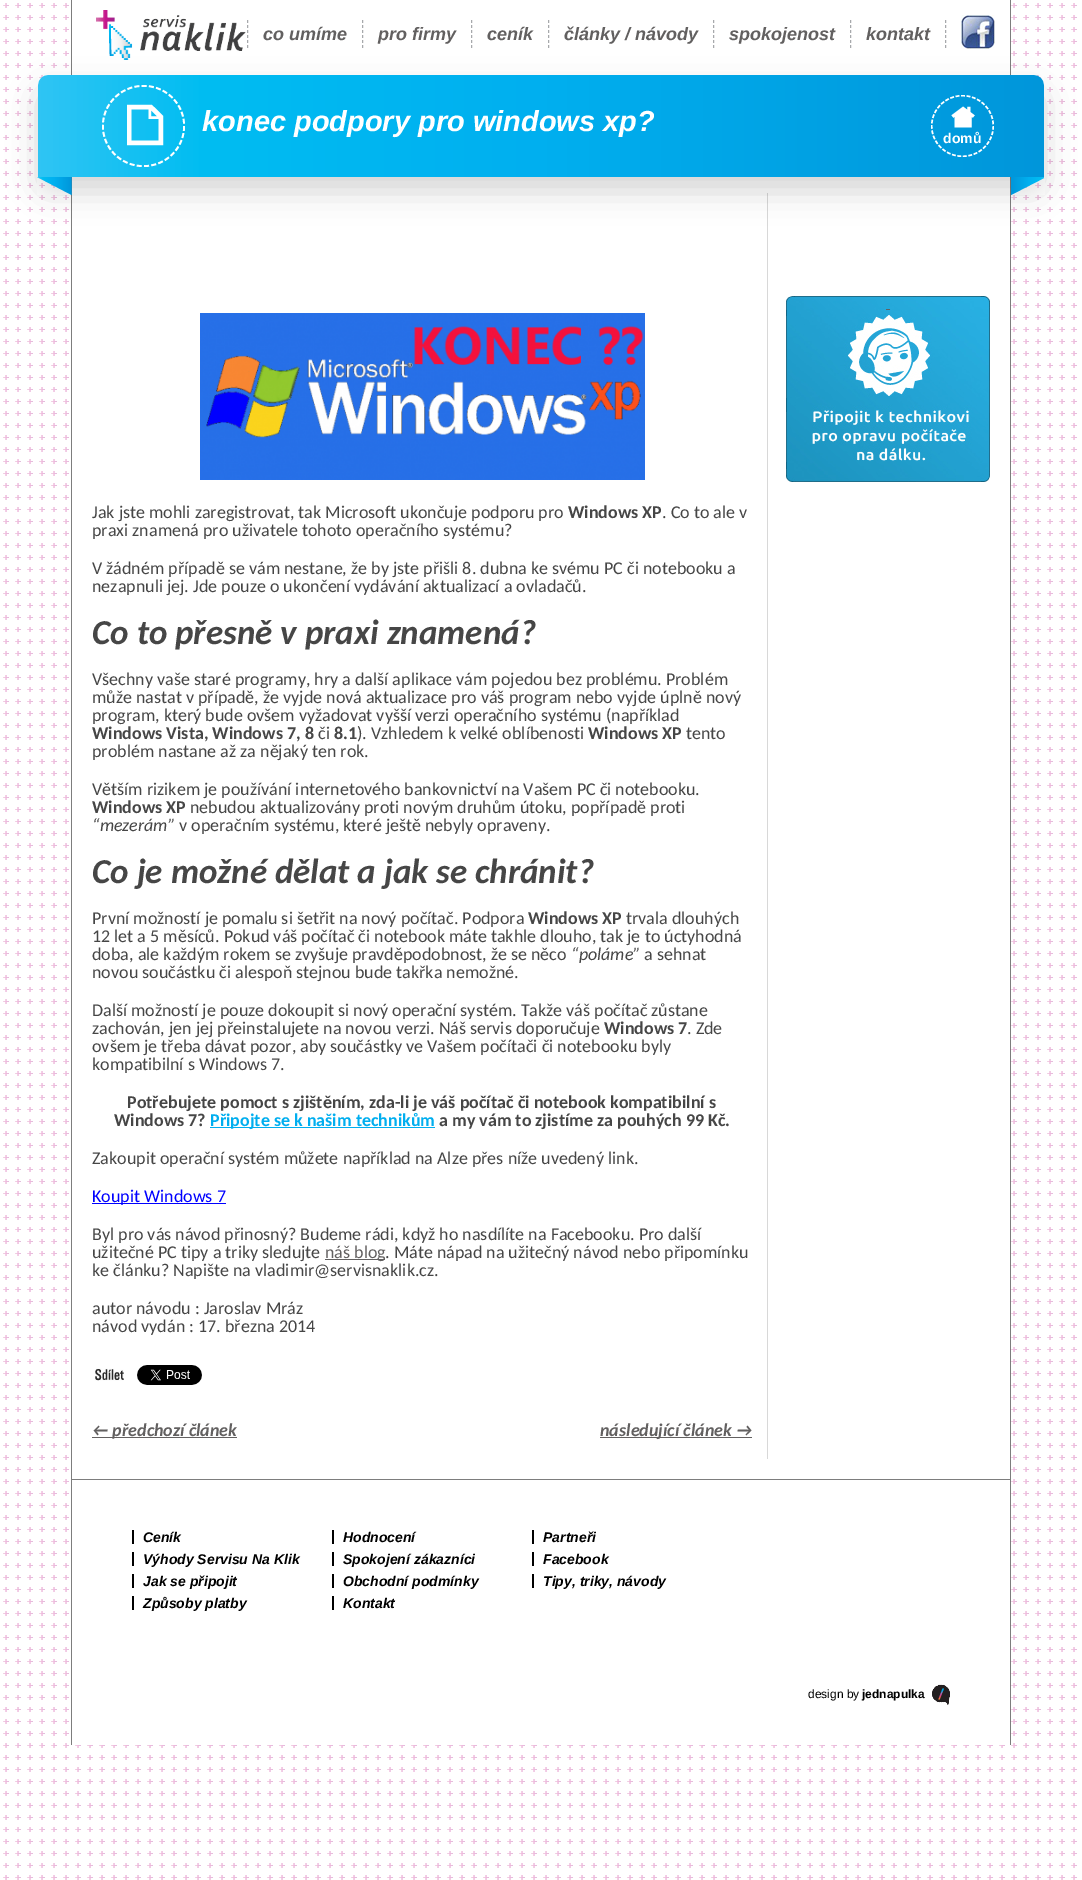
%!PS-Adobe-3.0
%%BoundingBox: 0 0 1082 1880
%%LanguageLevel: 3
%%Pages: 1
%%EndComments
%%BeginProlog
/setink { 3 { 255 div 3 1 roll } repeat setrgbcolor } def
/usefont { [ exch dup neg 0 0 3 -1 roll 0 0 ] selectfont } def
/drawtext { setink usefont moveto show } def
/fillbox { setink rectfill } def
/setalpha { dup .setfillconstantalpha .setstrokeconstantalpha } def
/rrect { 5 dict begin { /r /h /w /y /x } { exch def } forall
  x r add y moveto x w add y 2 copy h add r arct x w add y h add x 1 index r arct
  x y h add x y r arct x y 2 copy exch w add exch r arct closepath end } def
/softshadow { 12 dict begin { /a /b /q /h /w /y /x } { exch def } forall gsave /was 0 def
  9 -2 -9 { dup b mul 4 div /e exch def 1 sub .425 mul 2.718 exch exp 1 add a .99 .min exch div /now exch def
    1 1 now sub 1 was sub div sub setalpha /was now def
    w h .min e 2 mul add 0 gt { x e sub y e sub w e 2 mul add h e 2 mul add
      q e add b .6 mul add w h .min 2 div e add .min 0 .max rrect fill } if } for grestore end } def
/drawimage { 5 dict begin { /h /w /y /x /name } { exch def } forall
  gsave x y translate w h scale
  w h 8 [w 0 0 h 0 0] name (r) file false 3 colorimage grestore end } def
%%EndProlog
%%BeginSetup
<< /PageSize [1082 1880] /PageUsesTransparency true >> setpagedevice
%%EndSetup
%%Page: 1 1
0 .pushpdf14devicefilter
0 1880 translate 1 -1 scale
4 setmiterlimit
0 0 1082 1880 255 255 255 fillbox
(assets/img1.rgb) 3 3 1074 1877 drawimage
75 3 930 65 255 255 255 fillbox
1010 0 1 75 125 125 125 fillbox
71 0 1 75 125 125 125 fillbox
(assets/img2.rgb) 96 10 150 50 drawimage
167 169 172 setink
[3 2] 0 setdash
247.5 20 moveto 247.5 48 lineto stroke
(co umíme) 263 40 /LiberationSans-BoldItalic 18 98 96 96 drawtext
167 169 172 setink
362.5 20 moveto 362.5 48 lineto stroke
(pro firmy) 378 40 /LiberationSans-BoldItalic 18 98 96 96 drawtext
167 169 172 setink
471.5 20 moveto 471.5 48 lineto stroke
(ceník) 487 40 /LiberationSans-BoldItalic 18 98 96 96 drawtext
167 169 172 setink
548.5 20 moveto 548.5 48 lineto stroke
(články / návody) 564 40 /LiberationSans-BoldItalic 18 98 96 96 drawtext
167 169 172 setink
713.5 20 moveto 713.5 48 lineto stroke
(spokojenost) 729 40 /LiberationSans-BoldItalic 18 98 96 96 drawtext
167 169 172 setink
945.5 20 moveto 945.5 48 lineto stroke
850.5 20 moveto 850.5 48 lineto stroke
(kontakt) 866 40 /LiberationSans-BoldItalic 18 98 96 96 drawtext
(assets/img3.rgb) 961 15 34 34 drawimage
75 183 930 1289 255 255 255 fillbox
1010 177 1 1302 125 125 125 fillbox
71 177 1 1302 125 125 125 fillbox
767 193 1 1266 216 216 216 fillbox
0 0 0 setink
38 90 1006 102 10 15 0.16 softshadow
(assets/img4.rgb) 38 75 1006 102 drawimage
(assets/img5.rgb) 102 85 83 82 drawimage
(konec podpory pro windows xp?) 202 131 /LiberationSans-BoldItalic 29 255 255 255 drawtext
(assets/img6.rgb) 931 95 63 62 drawimage
(domů) 943 143 /LiberationSans-Bold 14 255 255 255 drawtext
(assets/img7.rgb) 37 177 35 18 drawimage
(assets/img8.rgb) 1011 177 34 18 drawimage
(assets/img9.rgb) 786 296 204 186 drawimage
886 309 4 1 98 96 96 fillbox
(assets/img10.rgb) 200 313 445 167 drawimage
(Jak jste mohli zaregistrovat, tak Microsoft ukončuje podporu pro) 92 518 /Carlito-Regular 18 70 70 70 drawtext
(Windows XP) 568 518 /Carlito-Bold 18 70 70 70 drawtext
(. Co to ale v) 662 518 /Carlito-Regular 18 70 70 70 drawtext
(praxi znamená pro uživatele tohoto operačního systému?) 92 536 /Carlito-Regular 18 70 70 70 drawtext
(V žádném případě se vám nestane, že by jste přišli 8. dubna ke svému PC či notebooku a) 92 574 /Carlito-Regular 18 70 70 70 drawtext
(nezapnuli jej. Jde pouze o ukončení vydávání aktualizací a ovladačů.) 92 592 /Carlito-Regular 18 70 70 70 drawtext
(Co to přesně v praxi znamená?) 92 644 /Carlito-BoldItalic 35 70 70 70 drawtext
(Všechny vaše staré programy, hry a další aplikace vám pojedou bez problému. Problém) 92 685 /Carlito-Regular 18 70 70 70 drawtext
(může nastat v případě, že vyjde nová aktualizace pro váš program nebo vyjde úplně nový) 92 703 /Carlito-Regular 18 70 70 70 drawtext
(program, který bude ovšem vyžadovat vyšší verzi operačního systému \(například) 92 721 /Carlito-Regular 18 70 70 70 drawtext
(Windows Vista, Windows 7, 8) 92 739 /Carlito-Bold 18 70 70 70 drawtext
(či) 318 739 /Carlito-Regular 18 70 70 70 drawtext
(8.1) 334 739 /Carlito-Bold 18 70 70 70 drawtext
(\). Vzhledem k velké oblíbenosti) 357 739 /Carlito-Regular 18 70 70 70 drawtext
(Windows XP) 588 739 /Carlito-Bold 18 70 70 70 drawtext
(tento) 686 739 /Carlito-Regular 18 70 70 70 drawtext
(problém nastane až za nějaký ten rok.) 92 757 /Carlito-Regular 18 70 70 70 drawtext
(Větším rizikem je používání internetového bankovnictví na Vašem PC či notebooku.) 92 795 /Carlito-Regular 18 70 70 70 drawtext
(Windows XP) 92 813 /Carlito-Bold 18 70 70 70 drawtext
(nebudou aktualizovány proti novým druhům útoku, popřípadě proti) 190 813 /Carlito-Regular 18 70 70 70 drawtext
(“mezerám”) 92 831 /Carlito-Italic 18 70 70 70 drawtext
(v operačním systému, které ještě nebyly opraveny.) 179 831 /Carlito-Regular 18 70 70 70 drawtext
(Co je možné dělat a jak se chránit?) 92 883 /Carlito-BoldItalic 35 70 70 70 drawtext
(První možností je pomalu si šetřit na nový počítač. Podpora) 92 924 /Carlito-Regular 18 70 70 70 drawtext
(Windows XP) 528 924 /Carlito-Bold 18 70 70 70 drawtext
(trvala dlouhých) 626 924 /Carlito-Regular 18 70 70 70 drawtext
(12 let a 5 měsíců. Pokud váš počítač či notebook máte takhle dlouho, tak je to úctyhodná) 92 942 /Carlito-Regular 18 70 70 70 drawtext
(doba, ale každým rokem se zvyšuje pravděpodobnost, že se něco) 92 960 /Carlito-Regular 18 70 70 70 drawtext
(“poláme”) 571 960 /Carlito-Italic 18 70 70 70 drawtext
(a sehnat) 644 960 /Carlito-Regular 18 70 70 70 drawtext
(novou součástku či alespoň stejnou bude takřka nemožné.) 92 978 /Carlito-Regular 18 70 70 70 drawtext
(Další možností je pouze dokoupit si nový operační systém. Takže váš počítač zůstane) 92 1016 /Carlito-Regular 18 70 70 70 drawtext
(zachován, jen jej přeinstalujete na novou verzi. Náš servis doporučuje) 92 1034 /Carlito-Regular 18 70 70 70 drawtext
(Windows 7) 604 1034 /Carlito-Bold 18 70 70 70 drawtext
(. Zde) 687 1034 /Carlito-Regular 18 70 70 70 drawtext
(ovšem je třeba dávat pozor, aby součástky ve Vašem počítači či notebooku byly) 92 1052 /Carlito-Regular 18 70 70 70 drawtext
(kompatibilní s Windows 7.) 92 1070 /Carlito-Regular 18 70 70 70 drawtext
(Potřebujete pomoct s zjištěním, zda-li je váš počítač či notebook kompatibilní s) 127 1108 /Carlito-Bold 18 70 70 70 drawtext
(Windows 7?) 114 1126 /Carlito-Bold 18 70 70 70 drawtext
210 1127 225 1 0 174 239 fillbox
(Připojte se k našim technikům) 210 1126 /Carlito-Bold 18 0 174 239 drawtext
(a my vám to zjistíme za pouhých 99 Kč.) 439 1126 /Carlito-Bold 18 70 70 70 drawtext
(Zakoupit operační systém můžete například na Alze přes níže uvedený link.) 92 1164 /Carlito-Regular 18 70 70 70 drawtext
92 1203 134 1 0 0 255 fillbox
(Koupit Windows 7) 92 1202 /Carlito-Regular 18 0 0 255 drawtext
(Byl pro vás návod přinosný? Budeme rádi, když ho nasdílíte na Facebooku. Pro další) 92 1240 /Carlito-Regular 18 70 70 70 drawtext
(užitečné PC tipy a triky sledujte) 92 1258 /Carlito-Regular 18 70 70 70 drawtext
325 1259 60 1 98 96 96 fillbox
(náš blog) 325 1258 /Carlito-Regular 18 98 96 96 drawtext
(. Máte nápad na užitečný návod nebo připomínku) 385 1258 /Carlito-Regular 18 70 70 70 drawtext
(ke článku? Napište na vladimir@servisnaklik.cz.) 92 1276 /Carlito-Regular 18 70 70 70 drawtext
(autor návodu : Jaroslav Mráz) 92 1314 /Carlito-Regular 18 70 70 70 drawtext
(návod vydán : 17. března 2014) 92 1332 /Carlito-Regular 18 70 70 70 drawtext
(assets/img11.rgb) 95 1368 29 13 drawimage
(assets/img12.rgb) 137 1365 65 20 drawimage
92 1437 145 1 98 96 96 fillbox
(← předchozí článek) 92 1436 /Carlito-BoldItalic 18 98 96 96 drawtext
600 1437 152 1 98 96 96 fillbox
(následující článek →) 600 1436 /Carlito-BoldItalic 18 98 96 96 drawtext
75 1480 930 265 255 255 255 fillbox
71 1479 940 1 125 125 125 fillbox
1010 1479 1 266 125 125 125 fillbox
71 1479 1 266 125 125 125 fillbox
132 1530 2 14 0 0 0 fillbox
(Ceník) 143 1542 /LiberationSans-BoldItalic 14 0 0 0 drawtext
132 1552 2 14 0 0 0 fillbox
(Výhody Servisu Na Klik) 143 1564 /LiberationSans-BoldItalic 14 0 0 0 drawtext
132 1574 2 14 0 0 0 fillbox
(Jak se připojit) 143 1586 /LiberationSans-BoldItalic 14 0 0 0 drawtext
132 1596 2 14 0 0 0 fillbox
(Způsoby platby) 143 1608 /LiberationSans-BoldItalic 14 0 0 0 drawtext
332 1530 2 14 0 0 0 fillbox
(Hodnocení) 343 1542 /LiberationSans-BoldItalic 14 0 0 0 drawtext
332 1552 2 14 0 0 0 fillbox
(Spokojení zákazníci) 343 1564 /LiberationSans-BoldItalic 14 0 0 0 drawtext
332 1574 2 14 0 0 0 fillbox
(Obchodní podmínky) 343 1586 /LiberationSans-BoldItalic 14 0 0 0 drawtext
332 1596 2 14 0 0 0 fillbox
(Kontakt) 343 1608 /LiberationSans-BoldItalic 14 0 0 0 drawtext
532 1530 2 14 0 0 0 fillbox
(Partneři) 543 1542 /LiberationSans-BoldItalic 14 0 0 0 drawtext
532 1552 2 14 0 0 0 fillbox
(Facebook) 543 1564 /LiberationSans-BoldItalic 14 0 0 0 drawtext
532 1574 2 14 0 0 0 fillbox
(Tipy, triky, návody) 543 1586 /LiberationSans-BoldItalic 14 0 0 0 drawtext
(assets/img13.rgb) 932 1684 18 21 drawimage
(design by) 808 1698 /LiberationSans-Regular 12 0 0 0 drawtext
(jednapulka) 862 1698 /LiberationSans-Bold 12 0 0 0 drawtext
.poppdf14devicefilter showpage
%%EOF
